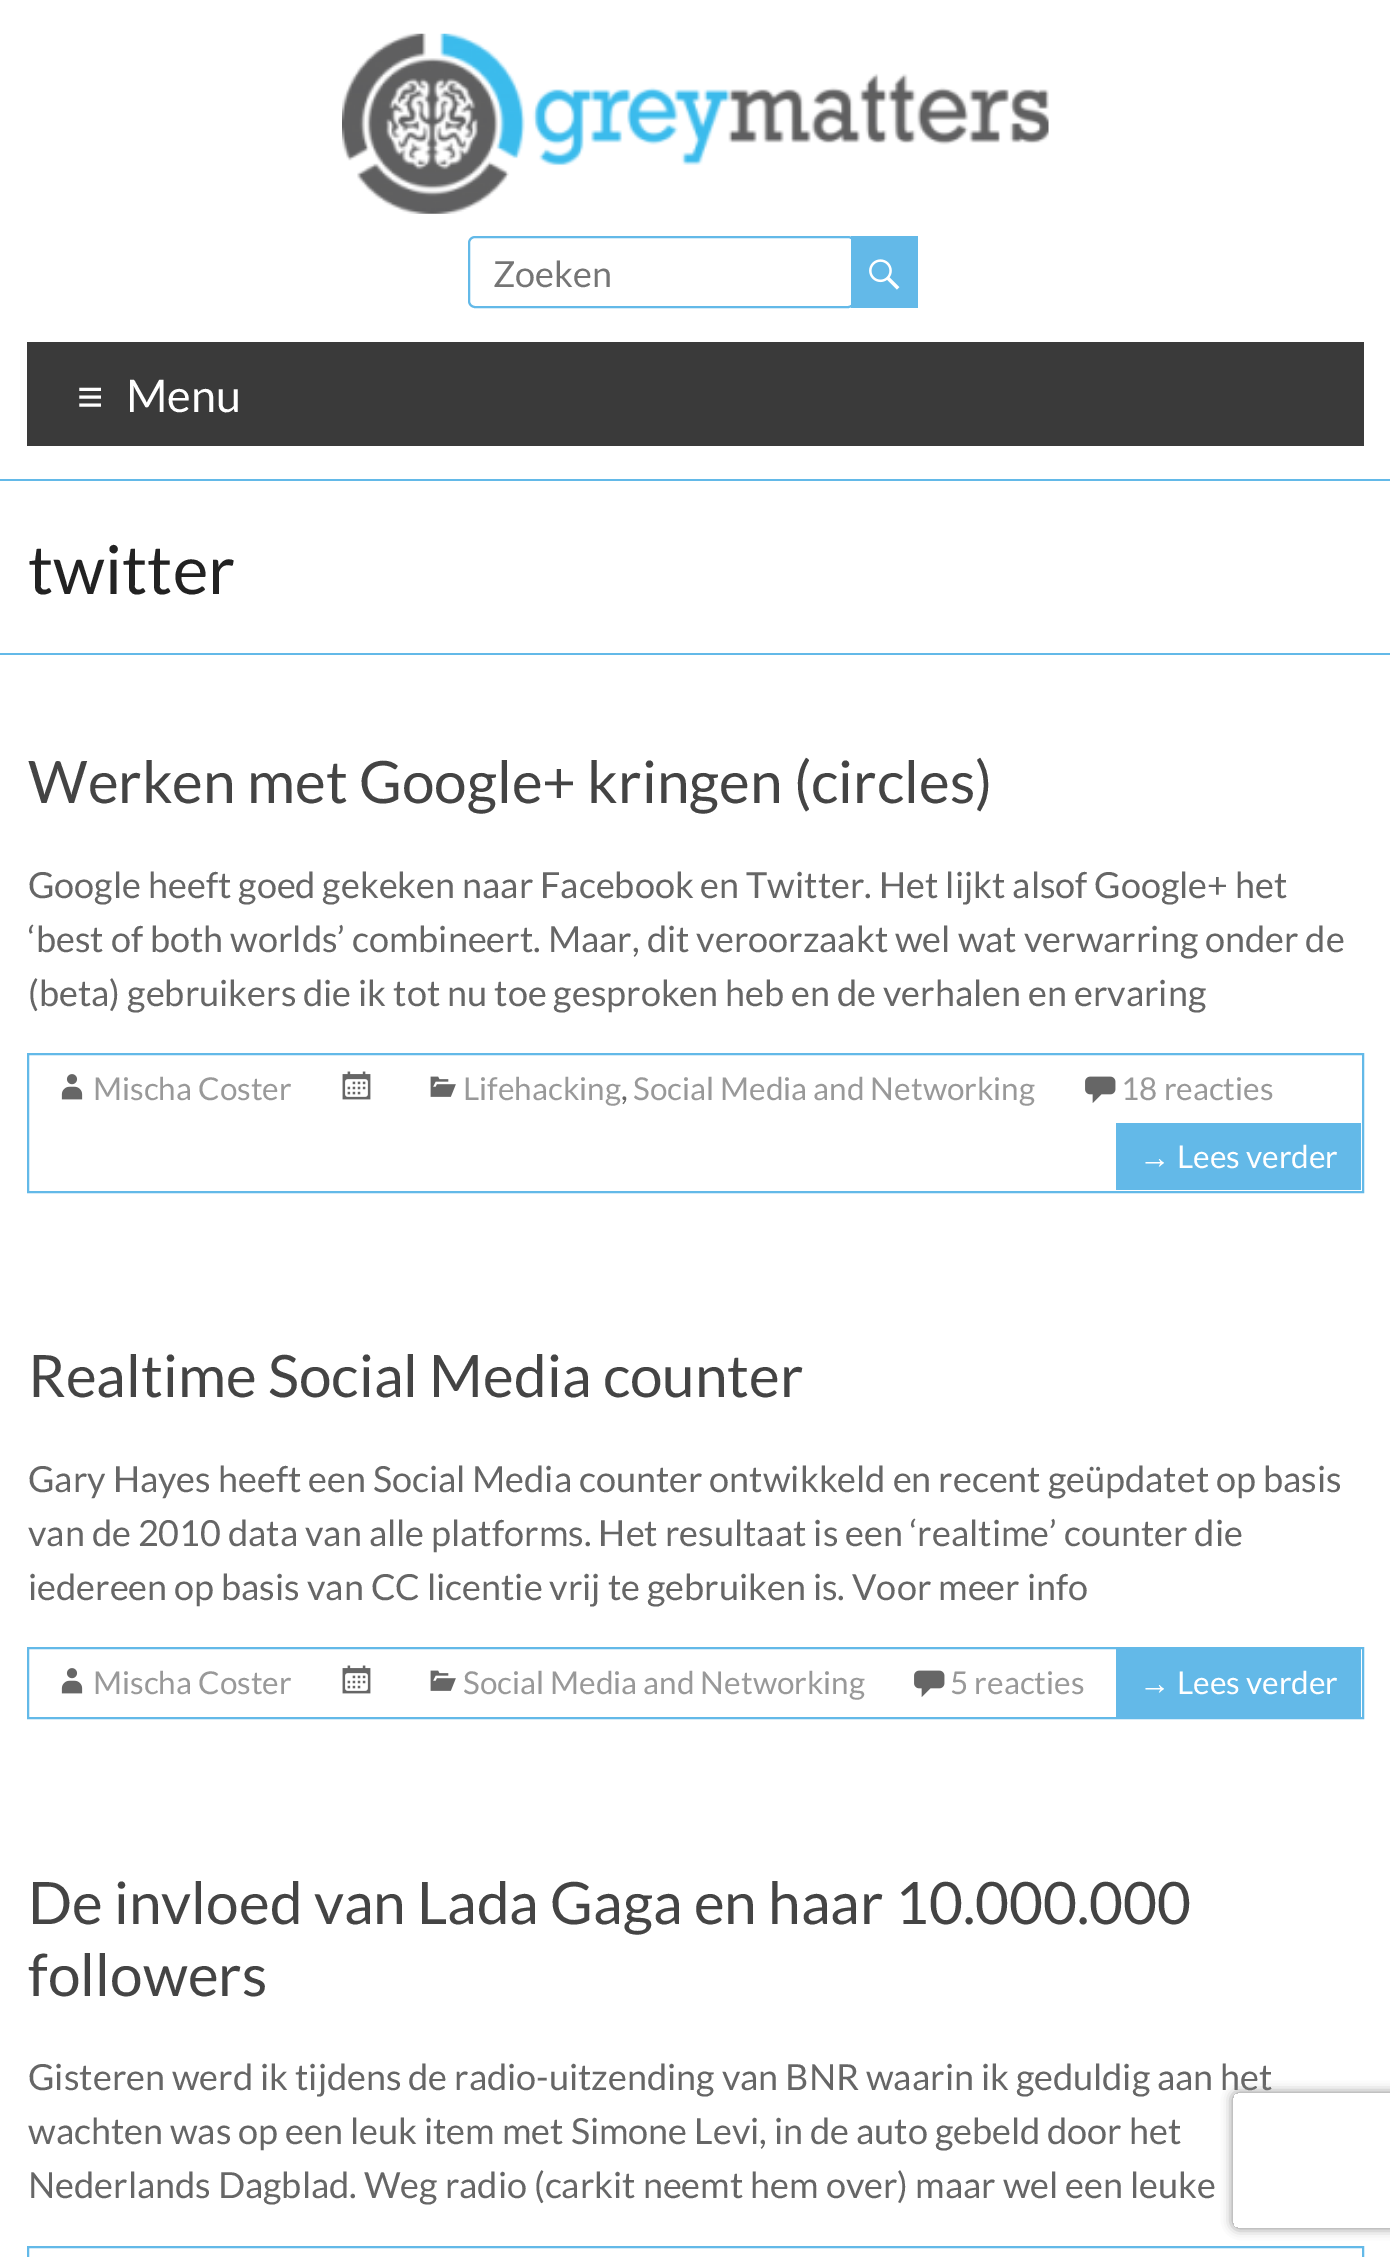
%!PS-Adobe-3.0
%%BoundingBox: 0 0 1390 2257
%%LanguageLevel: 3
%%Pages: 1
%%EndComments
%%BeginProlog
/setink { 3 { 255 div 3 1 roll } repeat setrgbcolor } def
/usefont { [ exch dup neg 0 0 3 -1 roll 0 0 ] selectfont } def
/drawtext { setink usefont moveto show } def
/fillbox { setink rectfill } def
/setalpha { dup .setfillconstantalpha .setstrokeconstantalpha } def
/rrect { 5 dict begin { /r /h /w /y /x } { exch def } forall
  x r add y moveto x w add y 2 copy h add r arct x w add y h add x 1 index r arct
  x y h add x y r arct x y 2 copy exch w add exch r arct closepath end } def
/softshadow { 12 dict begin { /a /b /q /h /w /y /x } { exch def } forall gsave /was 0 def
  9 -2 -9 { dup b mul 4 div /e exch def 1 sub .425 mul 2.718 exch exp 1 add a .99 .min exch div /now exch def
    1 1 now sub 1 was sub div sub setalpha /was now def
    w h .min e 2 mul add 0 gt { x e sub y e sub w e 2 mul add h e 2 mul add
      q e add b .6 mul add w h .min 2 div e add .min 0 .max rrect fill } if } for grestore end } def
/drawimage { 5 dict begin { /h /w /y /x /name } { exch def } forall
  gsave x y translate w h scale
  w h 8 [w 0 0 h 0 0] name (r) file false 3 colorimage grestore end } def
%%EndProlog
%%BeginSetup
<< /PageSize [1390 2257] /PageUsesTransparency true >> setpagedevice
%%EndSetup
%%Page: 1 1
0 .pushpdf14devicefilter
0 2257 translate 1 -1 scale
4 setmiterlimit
0 0 1390 2257 255 255 255 fillbox
0 479 1390 2 99 185 232 fillbox
(assets/img1.rgb) 342 33 707 181 drawimage
2 setlinewidth
469 237 385 70 6 rrect stroke
(Zoeken) 493 287 /Lato-Regular 36 117 117 117 drawtext
851 236 67 72 99 185 232 fillbox
(assets/img2.rgb) 869 259 31 31 drawimage
27 342 1337 104 58 58 58 fillbox
(≡) 77 412 /LiberationSans-Regular 45 255 255 255 drawtext
(Menu) 126 412 /Lato-Regular 45 255 255 255 drawtext
0 653 1390 2 99 185 232 fillbox
(twitter) 28 594 /Lato-Regular 67.5 34 34 34 drawtext
(Werken met Google+ kringen \(circles\)) 28 803 /Lato-Regular 58.5 68 68 68 drawtext
(Google heeft goed gekeken naar Facebook en Twitter. Het lijkt alsof Google+ het) 28 898 /Lato-Regular 36 102 102 102 drawtext
(‘best of both worlds’ combineert. Maar, dit veroorzaakt wel wat verwarring onder de) 28 952 /Lato-Regular 36 102 102 102 drawtext
(\(beta\) gebruikers die ik tot nu toe gesproken heb en de verhalen en ervaring) 28 1006 /Lato-Regular 36 102 102 102 drawtext
99 185 232 setink
28 1054 1335 138 rectstroke
(assets/img3.rgb) 61 1074 22 26 drawimage
(Mischa Coster) 93 1100 /Lato-Regular 31.5 153 153 153 drawtext
(assets/img4.rgb) 342 1071 29 29 drawimage
(assets/img5.rgb) 430 1076 26 21 drawimage
(Lifehacking) 463 1100 /Lato-Regular 31.5 153 153 153 drawtext
(,) 621 1100 /Lato-Regular 31.5 102 102 102 drawtext
(Social Media and Networking) 633 1100 /Lato-Regular 31.5 153 153 153 drawtext
(assets/img6.rgb) 1085 1076 31 27 drawimage
(18 reacties) 1121 1100 /Lato-Regular 31.5 153 153 153 drawtext
1116 1123 245 67 99 185 232 fillbox
(→) 1139 1168 /LiberationSans-Regular 31.5 255 255 255 drawtext
(Lees verder) 1177 1168 /Lato-Regular 31.5 255 255 255 drawtext
(Realtime Social Media counter) 28 1397 /Lato-Regular 58.5 68 68 68 drawtext
(Gary Hayes heeft een Social Media counter ontwikkeld en recent geüpdatet op basis) 28 1492 /Lato-Regular 36 102 102 102 drawtext
(van de 2010 data van alle platforms. Het resultaat is een ‘realtime’ counter die) 28 1546 /Lato-Regular 36 102 102 102 drawtext
(iedereen op basis van CC licentie vrij te gebruiken is. Voor meer info) 28 1600 /Lato-Regular 36 102 102 102 drawtext
99 185 232 setink
28 1648 1335 70 rectstroke
(assets/img3.rgb) 61 1668 22 26 drawimage
(Mischa Coster) 93 1694 /Lato-Regular 31.5 153 153 153 drawtext
(assets/img4.rgb) 342 1665 29 29 drawimage
(assets/img5.rgb) 430 1670 26 21 drawimage
(Social Media and Networking) 463 1694 /Lato-Regular 31.5 153 153 153 drawtext
(assets/img6.rgb) 914 1670 31 27 drawimage
(5 reacties) 950 1694 /Lato-Regular 31.5 153 153 153 drawtext
1116 1649 245 68 99 185 232 fillbox
(→) 1139 1694 /LiberationSans-Regular 31.5 255 255 255 drawtext
(Lees verder) 1177 1694 /Lato-Regular 31.5 255 255 255 drawtext
(De invloed van Lada Gaga en haar 10.000.000) 28 1924 /Lato-Regular 58.5 68 68 68 drawtext
(followers) 28 1996 /Lato-Regular 58.5 68 68 68 drawtext
(Gisteren werd ik tijdens de radio-uitzending van BNR waarin ik geduldig aan het) 28 2090 /Lato-Regular 36 102 102 102 drawtext
(wachten was op een leuk item met Simone Levi, in de auto gebeld door het) 28 2144 /Lato-Regular 36 102 102 102 drawtext
(Nederlands Dagblad. Weg radio \(carkit neemt hem over\) maar wel een leuke) 28 2198 /Lato-Regular 36 102 102 102 drawtext
99 185 232 setink
28 2247 1335 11 rectstroke
gsave
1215 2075 moveto 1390 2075 lineto 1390 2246 lineto 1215 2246 lineto closepath 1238 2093 moveto 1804 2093 lineto 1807 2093 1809 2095 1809 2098 curveto 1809 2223 lineto 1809 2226 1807 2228 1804 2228 curveto 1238 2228 lineto 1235 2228 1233 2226 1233 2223 curveto 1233 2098 lineto 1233 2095 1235 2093 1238 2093 curveto closepath eoclip newpath
128 128 128 setink
1233 2093 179 135 5 5.5 1 softshadow
grestore
.poppdf14devicefilter showpage
%%EOF
